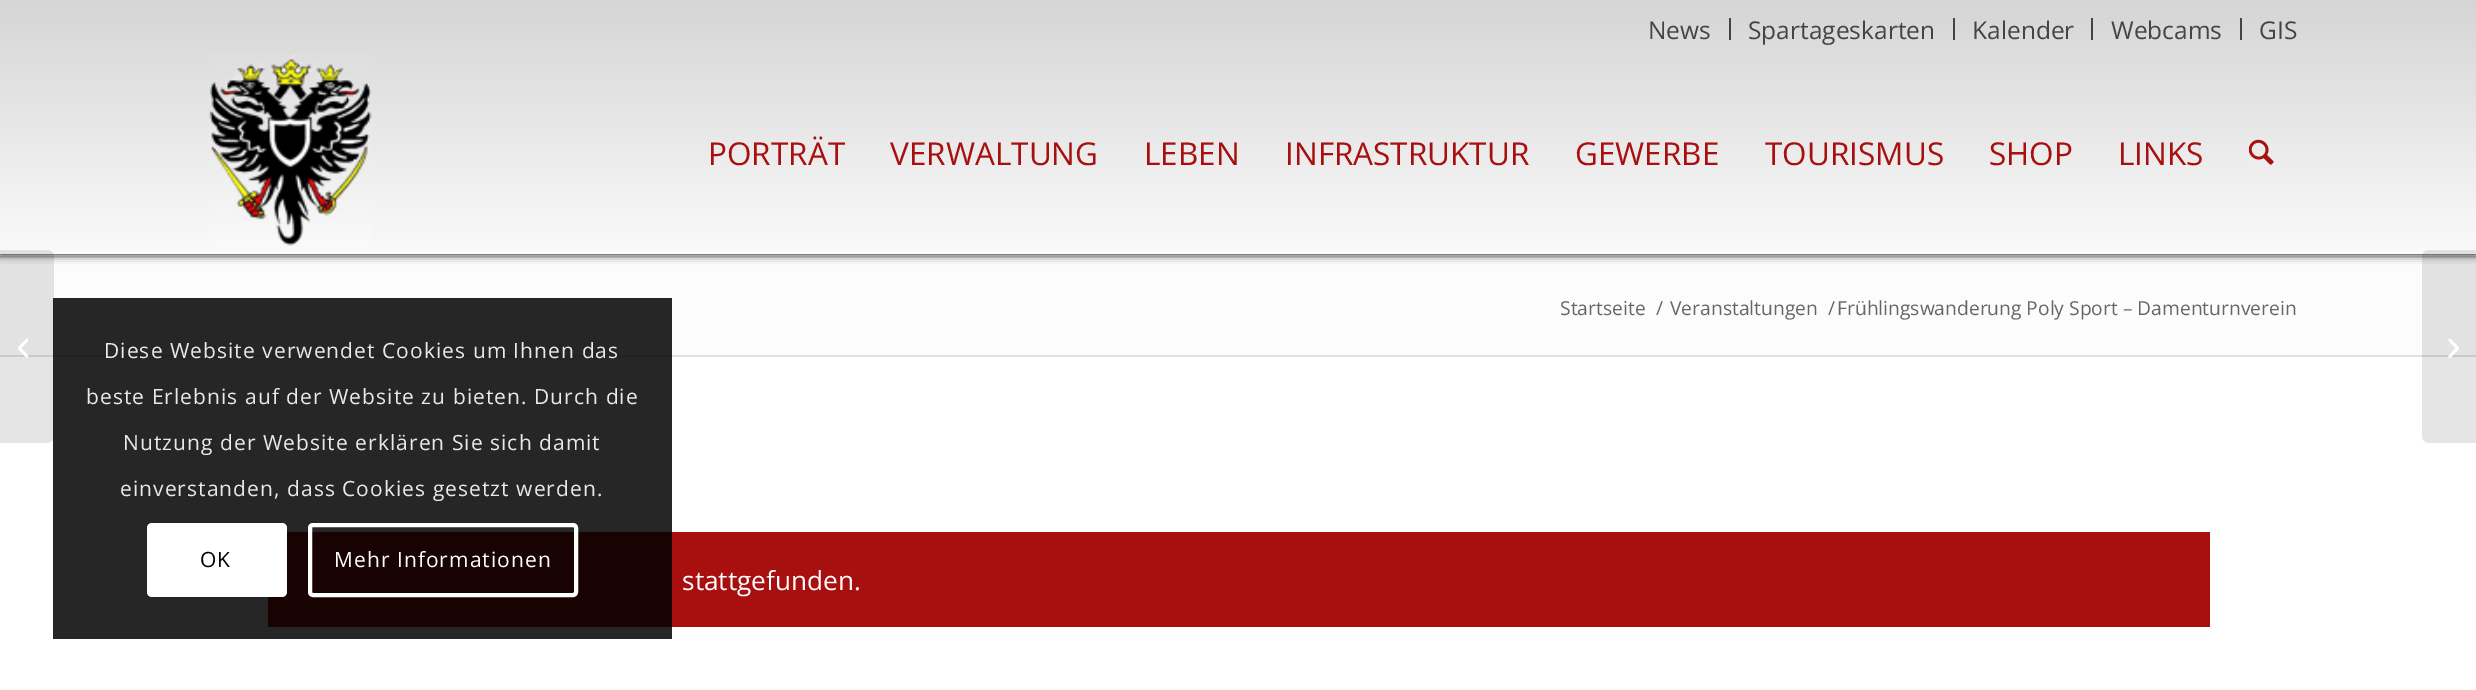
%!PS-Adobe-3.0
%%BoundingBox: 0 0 2476 690
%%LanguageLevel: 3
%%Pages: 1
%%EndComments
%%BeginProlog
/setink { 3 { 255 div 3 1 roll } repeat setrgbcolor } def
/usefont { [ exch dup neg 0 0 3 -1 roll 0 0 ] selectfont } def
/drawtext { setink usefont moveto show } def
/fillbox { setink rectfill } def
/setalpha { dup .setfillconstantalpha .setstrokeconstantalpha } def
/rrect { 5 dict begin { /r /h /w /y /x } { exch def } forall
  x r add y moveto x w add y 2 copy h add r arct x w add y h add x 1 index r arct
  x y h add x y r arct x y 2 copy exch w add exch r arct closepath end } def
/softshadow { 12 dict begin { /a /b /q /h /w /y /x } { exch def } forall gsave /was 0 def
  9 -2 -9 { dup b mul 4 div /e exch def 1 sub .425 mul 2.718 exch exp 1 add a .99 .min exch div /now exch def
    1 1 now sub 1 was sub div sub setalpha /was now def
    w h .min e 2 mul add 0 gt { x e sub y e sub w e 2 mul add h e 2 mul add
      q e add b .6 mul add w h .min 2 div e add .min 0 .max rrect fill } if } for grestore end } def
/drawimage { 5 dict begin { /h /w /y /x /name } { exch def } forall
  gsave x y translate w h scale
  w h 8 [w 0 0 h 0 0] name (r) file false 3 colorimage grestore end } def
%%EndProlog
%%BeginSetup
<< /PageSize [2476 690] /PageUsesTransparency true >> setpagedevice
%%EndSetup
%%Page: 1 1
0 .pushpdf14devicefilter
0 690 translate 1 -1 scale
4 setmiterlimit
0 0 2476 690 255 255 255 fillbox
0 258 2476 97 252 252 252 fillbox
0 256 2476 2 225 225 225 fillbox
gsave
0 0 moveto 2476 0 lineto 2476 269 lineto 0 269 lineto closepath 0 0 moveto 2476 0 lineto 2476 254 lineto 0 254 lineto closepath eoclip newpath
0 0 0 setink
0 0 2476 254 0 4.5 1 softshadow
grestore
0.95 setalpha
gsave 0 0 moveto 2476 0 lineto 2476 254 lineto 0 254 lineto closepath clip newpath
<< /ShadingType 2 /ColorSpace /DeviceRGB /Coords [1238 0 1238 254] /Extend [true true] /Function << /FunctionType 2 /Domain [0 1] /C0 [0.827 0.827 0.827] /C1 [0.98 0.98 0.98] /N 1 >> >> shfill grestore
1 setalpha
0 355 2476 2 225 225 225 fillbox
0.1 setalpha
0 0 0 setink
0 250 moveto 47 250 lineto 51 250 54 253 54 257 curveto 54 436 lineto 54 440 51 443 47 443 curveto 0 443 lineto closepath fill
1 setalpha
268 532 1942 95 168 16 16 fillbox
0.85 setalpha
53 298 619 341 0 0 0 fillbox
/OpenSans-Regular 21 usefont
1 setalpha
233 233 233 setink
104 358 moveto 1.05 0 (Diese Website verwendet Cookies um Ihnen das) ashow
86 404 moveto 1.05 0 (beste Erlebnis auf der Website zu bieten. Durch die) ashow
123 450 moveto 1.05 0 (Nutzung der Website erklären Sie sich damit) ashow
120 496 moveto 1.05 0 (einverstanden, dass Cookies gesetzt werden.) ashow
255 255 255 setink
147 523 140 74 5 rrect fill
0 0 0 setink
200 567 moveto 1.05 0 (OK) ashow
255 255 255 setink
4 setlinewidth
310 525 266 70 3 rrect stroke
334 567 moveto 1.05 0 (Mehr Informationen) ashow
1729 18 2 22 68 68 68 fillbox
(News) 1648 39 /OpenSans-Regular 24.5 68 68 68 drawtext
1953 18 2 22 68 68 68 fillbox
(Spartageskarten) 1748 39 /OpenSans-Regular 24.5 68 68 68 drawtext
2091 18 2 22 68 68 68 fillbox
(Kalender) 1972 39 /OpenSans-Regular 24.5 68 68 68 drawtext
2240 18 2 22 68 68 68 fillbox
(Webcams) 2111 39 /OpenSans-Regular 24.5 68 68 68 drawtext
(GIS) 2259 39 /OpenSans-Regular 24.5 68 68 68 drawtext
(assets/img1.rgb) 209 54 163 192 drawimage
(PORTRÄT) 708 165 /OpenSans-Regular 31.5 168 16 16 drawtext
(VERWALTUNG) 890 165 /OpenSans-Regular 31.5 168 16 16 drawtext
(LEBEN) 1144 165 /OpenSans-Regular 31.5 168 16 16 drawtext
(INFRASTRUKTUR) 1285 165 /OpenSans-Regular 31.5 168 16 16 drawtext
(GEWERBE) 1575 165 /OpenSans-Regular 31.5 168 16 16 drawtext
(TOURISMUS) 1765 165 /OpenSans-Regular 31.5 168 16 16 drawtext
(SHOP) 1989 165 /OpenSans-Regular 31.5 168 16 16 drawtext
(LINKS) 2118 165 /OpenSans-Regular 31.5 168 16 16 drawtext
(assets/img2.rgb) 2249 139 25 26 drawimage
(assets/img3.rgb) 18 338 10 20 drawimage
(Startseite) 1560 315 /OpenSans-Regular 19.25 102 102 102 drawtext
(/) 1656 315 /OpenSans-Regular 19.25 102 102 102 drawtext
(Veranstaltungen) 1670 315 /OpenSans-Regular 19.25 102 102 102 drawtext
(/) 1828 315 /OpenSans-Regular 19.25 102 102 102 drawtext
(Frühlingswanderung Poly Sport – Damenturnverein) 1837 315 /OpenSans-Regular 19.25 102 102 102 drawtext
(stattgefunden.) 682 590 /OpenSans-Regular 26.25 255 255 255 drawtext
0.1 setalpha
0 0 0 setink
2429 250 moveto 2476 250 lineto 2476 443 lineto 2429 443 lineto 2425 443 2422 440 2422 436 curveto 2422 257 lineto 2422 253 2425 250 2429 250 curveto closepath fill
1 setalpha
(assets/img4.rgb) 2448 338 11 20 drawimage
.poppdf14devicefilter showpage
%%EOF
